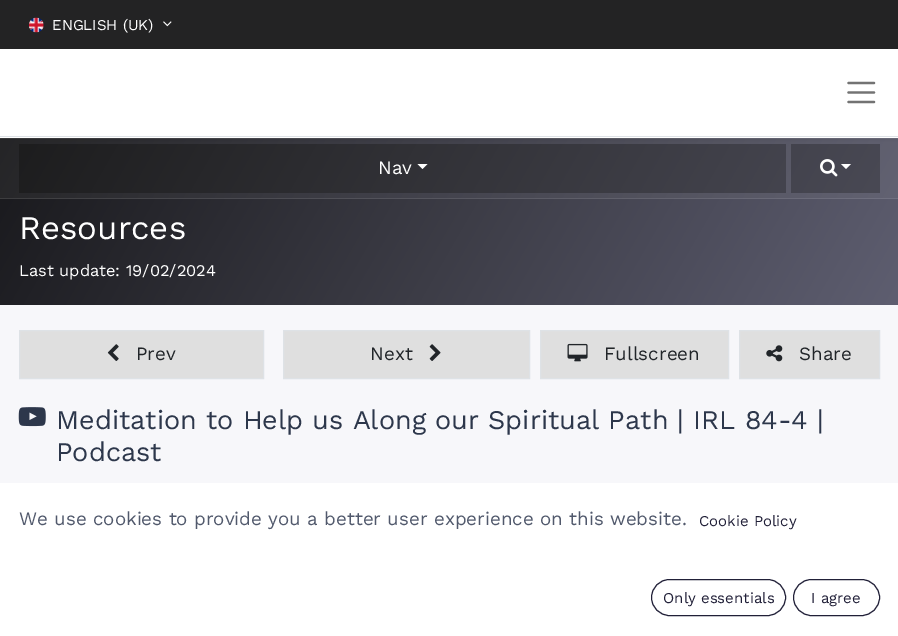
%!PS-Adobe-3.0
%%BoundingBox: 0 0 898 636
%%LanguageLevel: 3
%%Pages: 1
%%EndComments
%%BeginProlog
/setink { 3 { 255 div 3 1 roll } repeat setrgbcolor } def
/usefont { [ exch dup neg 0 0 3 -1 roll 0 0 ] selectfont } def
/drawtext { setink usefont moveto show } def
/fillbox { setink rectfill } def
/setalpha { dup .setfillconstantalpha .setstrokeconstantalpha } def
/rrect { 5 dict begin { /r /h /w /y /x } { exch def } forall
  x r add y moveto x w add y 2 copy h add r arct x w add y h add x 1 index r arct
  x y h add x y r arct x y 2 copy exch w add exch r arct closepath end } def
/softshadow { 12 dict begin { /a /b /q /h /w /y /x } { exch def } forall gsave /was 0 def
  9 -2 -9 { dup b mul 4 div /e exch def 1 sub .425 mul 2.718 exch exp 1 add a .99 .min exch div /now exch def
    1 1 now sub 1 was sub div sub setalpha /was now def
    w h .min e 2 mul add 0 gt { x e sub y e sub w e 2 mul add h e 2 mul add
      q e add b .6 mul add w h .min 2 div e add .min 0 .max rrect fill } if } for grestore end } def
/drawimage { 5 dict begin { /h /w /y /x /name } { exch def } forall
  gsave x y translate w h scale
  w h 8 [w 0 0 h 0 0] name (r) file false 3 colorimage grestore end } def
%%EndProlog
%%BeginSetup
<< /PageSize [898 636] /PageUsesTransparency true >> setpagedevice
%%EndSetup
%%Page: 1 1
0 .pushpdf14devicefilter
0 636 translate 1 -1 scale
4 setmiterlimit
0 0 898 636 247 247 250 fillbox
0 0 898 49 35 35 36 fillbox
(assets/img1.rgb) 28 17 16 16 drawimage
(ENGLISH \(UK\)) 52 30 /WorkSans-Regular 15 255 255 255 drawtext
(assets/img2.rgb) 163 21 9 6 drawimage
gsave 0 139 moveto 898 139 lineto 898 198 lineto 0 198 lineto closepath clip newpath
<< /ShadingType 2 /ColorSpace /DeviceRGB /Coords [76 5.7 823 437] /Extend [true true] /Function << /FunctionType 2 /Domain [0 1] /C0 [0.145 0.145 0.153] /C1 [0.4 0.4 0.467] /N 1 >> >> shfill grestore
gsave 791 144 moveto 880 144 lineto 880 193 lineto 791 193 lineto closepath clip newpath
<< /ShadingType 2 /ColorSpace /DeviceRGB /Coords [76 5.7 823 437] /Extend [true true] /Function << /FunctionType 2 /Domain [0 1] /C0 [0.11 0.11 0.114] /C1 [0.302 0.302 0.349] /N 1 >> >> shfill grestore
gsave 19 144 moveto 786 144 lineto 786 193 lineto 19 193 lineto closepath clip newpath
<< /ShadingType 2 /ColorSpace /DeviceRGB /Coords [76 5.7 823 437] /Extend [true true] /Function << /FunctionType 2 /Domain [0 1] /C0 [0.11 0.11 0.114] /C1 [0.302 0.302 0.349] /N 1 >> >> shfill grestore
gsave 0 138 moveto 898 138 lineto 898 139 lineto 0 139 lineto closepath clip newpath
<< /ShadingType 2 /ColorSpace /DeviceRGB /Coords [76 5.7 823 437] /Extend [true true] /Function << /FunctionType 2 /Domain [0 1] /C0 [0.231 0.231 0.239] /C1 [0.459 0.459 0.522] /N 1 >> >> shfill grestore
0 0 0 setink
0 51 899 89 0 2.5 0.07 softshadow
0 49 898 89 255 255 255 fillbox
115 115 115 setink
2.3 setlinewidth
1 setlinecap
848.5 83 moveto 874 83 lineto 848.5 92.5 moveto 874 92.5 lineto 848.5 102 moveto 874 102 lineto stroke
0 136 898 1 222 226 230 fillbox
gsave 0 199 moveto 898 199 lineto 898 305 lineto 0 305 lineto closepath clip newpath
<< /ShadingType 2 /ColorSpace /DeviceRGB /Coords [76 5.7 823 437] /Extend [true true] /Function << /FunctionType 2 /Domain [0 1] /C0 [0.098 0.098 0.11] /C1 [0.369 0.369 0.439] /N 1 >> >> shfill grestore
gsave 0 198 moveto 898 198 lineto 898 199 lineto 0 199 lineto closepath clip newpath
<< /ShadingType 2 /ColorSpace /DeviceRGB /Coords [76 5.7 823 437] /Extend [true true] /Function << /FunctionType 2 /Domain [0 1] /C0 [0.231 0.231 0.239] /C1 [0.459 0.459 0.522] /N 1 >> >> shfill grestore
(Nav) 378 174 /WorkSans-Regular 18.75 255 255 255 drawtext
417.5 164 moveto 427.5 164 lineto 422.5 169 lineto closepath fill
(assets/img3.rgb) 820 159 18 18 drawimage
841 164 moveto 851 164 lineto 846 169 lineto closepath fill
(Resources) 19 239 /WorkSans-Regular 33 255 255 255 drawtext
(Last update: 19/02/2024) 19 276 /WorkSans-Regular 16.4 255 255 255 drawtext
223 223 223 setink
19.5 330.5 moveto 263.5 330.5 lineto 263.5 378.5 lineto 19.5 378.5 lineto closepath gsave fill grestore
222 226 230 setink
1 setlinewidth
0 setlinecap
stroke
(assets/img4.rgb) 107 344 12 17 drawimage
(Prev) 136 360 /WorkSans-Regular 18.75 33 37 41 drawtext
223 223 223 setink
283.5 330.5 moveto 529.5 330.5 lineto 529.5 378.5 lineto 283.5 378.5 lineto closepath gsave fill grestore
222 226 230 setink
stroke
(Next) 370 360 /WorkSans-Regular 18.75 33 37 41 drawtext
(assets/img5.rgb) 429 344 12 17 drawimage
223 223 223 setink
540.5 330.5 moveto 728.5 330.5 lineto 728.5 378.5 lineto 540.5 378.5 lineto closepath gsave fill grestore
222 226 230 setink
stroke
(assets/img6.rgb) 567 343 21 19 drawimage
(Fullscreen) 604 360 /WorkSans-Regular 18.75 33 37 41 drawtext
223 223 223 setink
739.5 330.5 moveto 879.5 330.5 lineto 879.5 378.5 lineto 739.5 378.5 lineto closepath gsave fill grestore
222 226 230 setink
stroke
(assets/img7.rgb) 766 345 17 17 drawimage
(Share) 799 360 /WorkSans-Regular 18.75 33 37 41 drawtext
(assets/img8.rgb) 18 407 28 20 drawimage
(Meditation to Help us Along our Spiritual Path | IRL 84-4 |) 56 429 /WorkSans-Regular 27 45 55 75 drawtext
(Podcast) 56 461 /WorkSans-Regular 27 45 55 75 drawtext
0 483 898 153 255 255 255 fillbox
(We use cookies to provide you a better user experience on this website.) 19 525 /WorkSans-Regular 18.75 81 89 108 drawtext
(Cookie Policy) 699 526 /WorkSans-Regular 15 33 32 56 drawtext
651.5 579.5 134 36 18 rrect stroke
(Only essentials) 663 603 /WorkSans-Regular 15 33 32 56 drawtext
793.5 579.5 86 36 18 rrect stroke
(I agree) 811 603 /WorkSans-Regular 15 33 32 56 drawtext
.poppdf14devicefilter showpage
%%EOF
